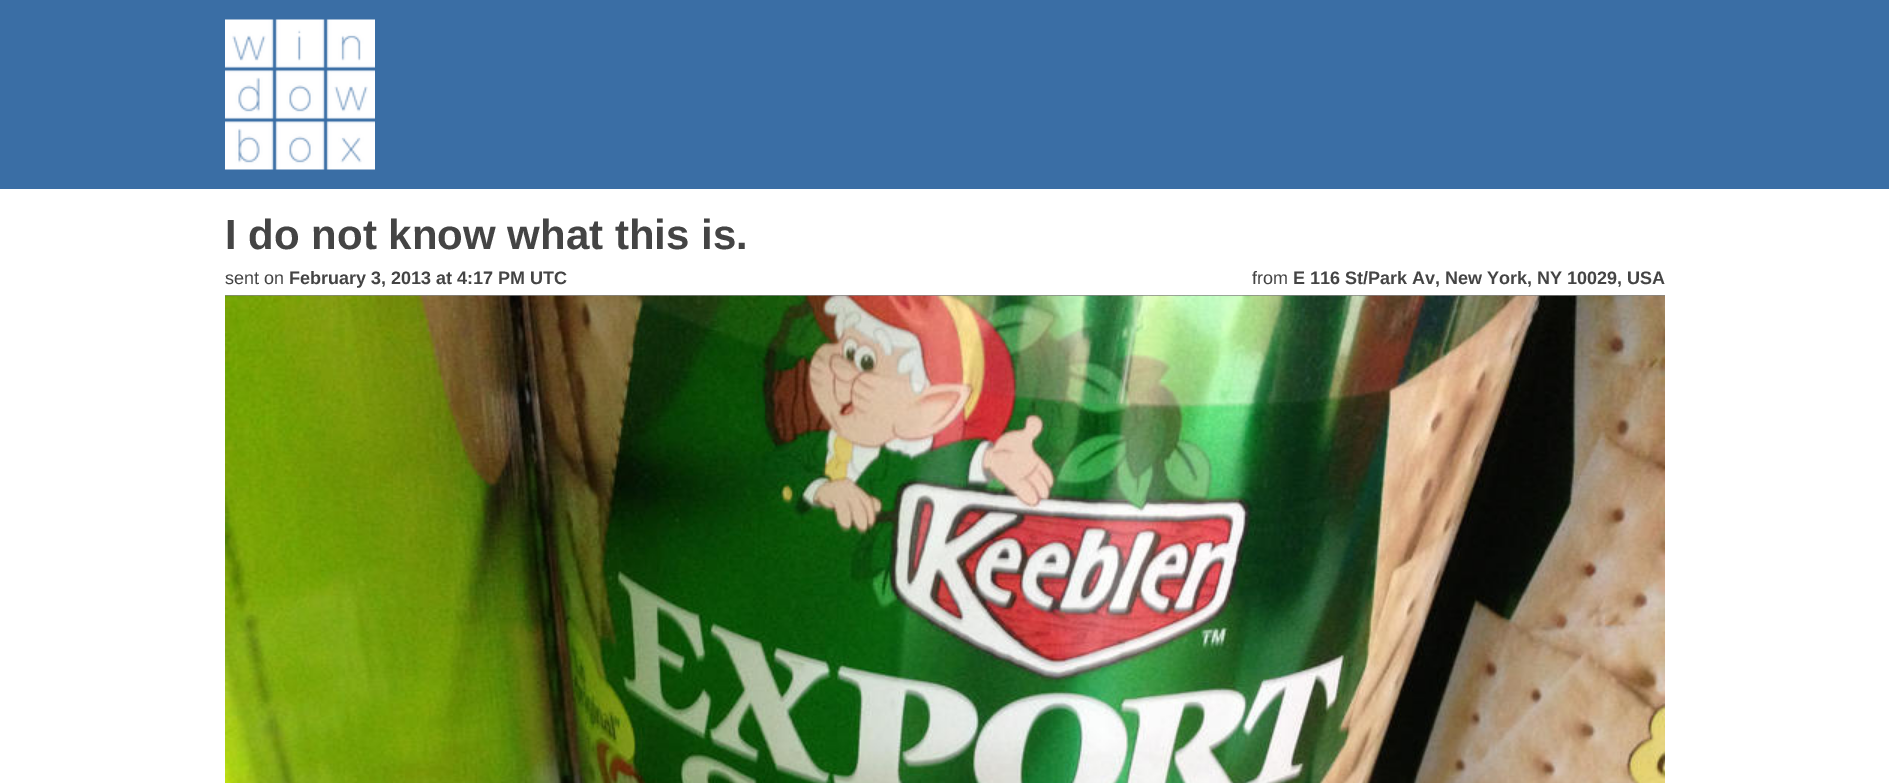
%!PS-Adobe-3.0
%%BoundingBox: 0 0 1889 783
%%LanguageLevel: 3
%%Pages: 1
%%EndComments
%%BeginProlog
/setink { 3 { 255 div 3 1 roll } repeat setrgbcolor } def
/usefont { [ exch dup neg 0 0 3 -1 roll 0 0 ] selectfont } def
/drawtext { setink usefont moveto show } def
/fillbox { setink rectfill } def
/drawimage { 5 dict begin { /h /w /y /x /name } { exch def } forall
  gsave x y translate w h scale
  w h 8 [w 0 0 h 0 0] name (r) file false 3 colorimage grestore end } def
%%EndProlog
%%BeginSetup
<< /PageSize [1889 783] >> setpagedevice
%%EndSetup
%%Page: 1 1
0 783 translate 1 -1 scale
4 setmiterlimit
0 0 1889 783 58 110 165 fillbox
(assets/img1.rgb) 225 19 150 151 drawimage
0 189 1889 594 255 255 255 fillbox
(I do not know what this is.) 225 249 /LiberationSans-Bold 42 68 68 68 drawtext
(sent on) 225 284 /LiberationSans-Regular 18 68 68 68 drawtext
(February 3, 2013 at 4:17 PM UTC) 289 284 /LiberationSans-Bold 18 68 68 68 drawtext
(from) 1252 284 /LiberationSans-Regular 18 68 68 68 drawtext
(E 116 St/Park Av, New York, NY 10029, USA) 1293 284 /LiberationSans-Bold 18 68 68 68 drawtext
(assets/img2.rgb) 225 295 1440 1 drawimage
(assets/img3.rgb) 225 295 1440 488 drawimage
showpage
%%EOF
